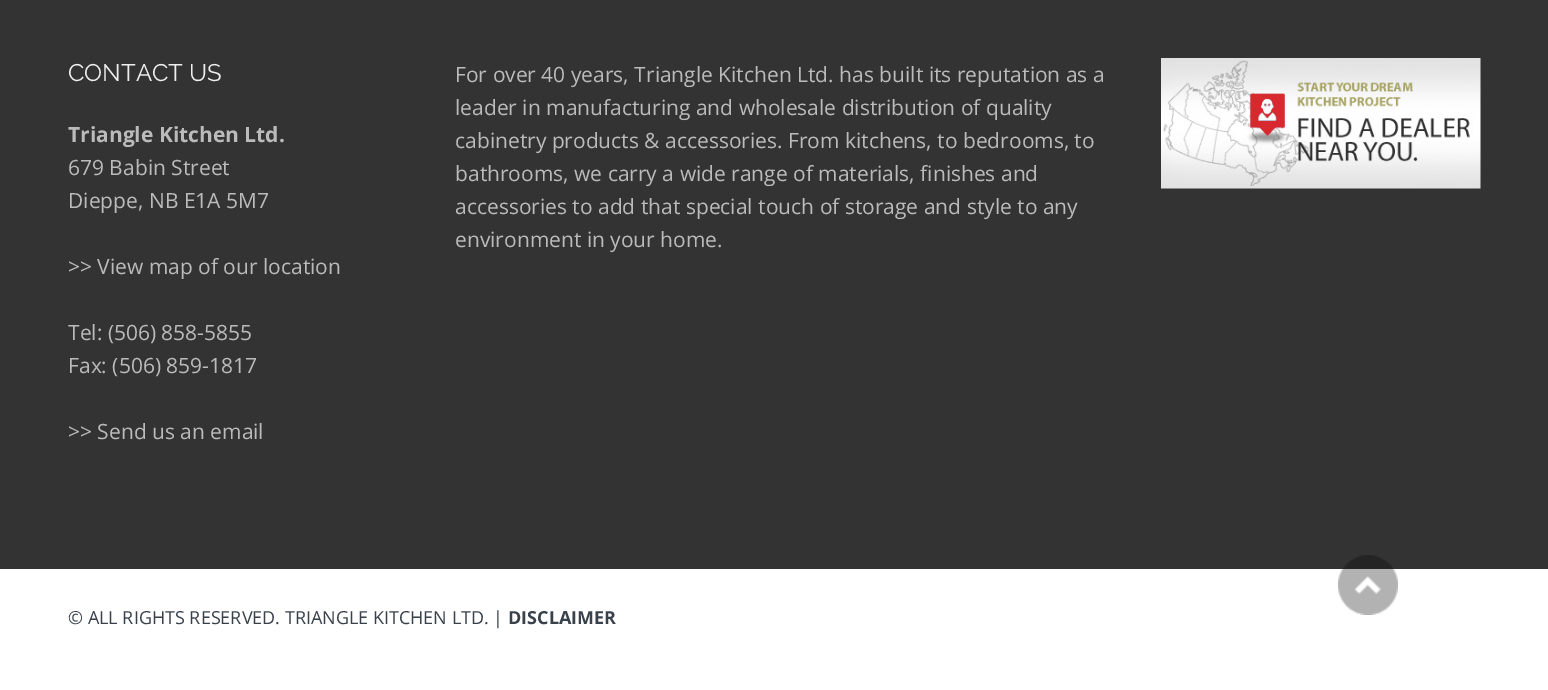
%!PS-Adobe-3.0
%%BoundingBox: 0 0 1548 690
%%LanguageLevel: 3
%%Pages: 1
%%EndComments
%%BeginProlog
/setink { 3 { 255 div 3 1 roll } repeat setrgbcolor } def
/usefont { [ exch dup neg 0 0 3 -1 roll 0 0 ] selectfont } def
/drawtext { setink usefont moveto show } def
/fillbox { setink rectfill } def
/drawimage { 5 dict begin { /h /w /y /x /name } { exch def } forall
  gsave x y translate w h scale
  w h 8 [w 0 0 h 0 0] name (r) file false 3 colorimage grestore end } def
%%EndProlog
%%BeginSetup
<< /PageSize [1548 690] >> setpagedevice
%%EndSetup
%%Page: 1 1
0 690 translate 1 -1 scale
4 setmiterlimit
0 0 1548 690 51 51 51 fillbox
(CONTACT US) 68 81 /Raleway-Regular 24 238 238 238 drawtext
(Triangle Kitchen Ltd.) 68 142 /OpenSans-Bold 21 187 187 187 drawtext
(679 Babin Street) 68 175 /OpenSans-Regular 21 187 187 187 drawtext
(Dieppe, NB E1A 5M7) 68 208 /OpenSans-Regular 21 187 187 187 drawtext
(>> View map of our location) 68 274 /OpenSans-Regular 21 187 187 187 drawtext
(Tel: \(506\) 858-5855) 68 340 /OpenSans-Regular 21 187 187 187 drawtext
(Fax: \(506\) 859-1817) 68 373 /OpenSans-Regular 21 187 187 187 drawtext
(>> Send us an email) 68 439 /OpenSans-Regular 21 187 187 187 drawtext
(For over 40 years, Triangle Kitchen Ltd. has built its reputation as a) 455 82 /OpenSans-Regular 21 187 187 187 drawtext
(leader in manufacturing and wholesale distribution of quality) 455 115 /OpenSans-Regular 21 187 187 187 drawtext
(cabinetry products & accessories. From kitchens, to bedrooms, to) 455 148 /OpenSans-Regular 21 187 187 187 drawtext
(bathrooms, we carry a wide range of materials, finishes and) 455 181 /OpenSans-Regular 21 187 187 187 drawtext
(accessories to add that special touch of storage and style to any) 455 214 /OpenSans-Regular 21 187 187 187 drawtext
(environment in your home.) 455 247 /OpenSans-Regular 21 187 187 187 drawtext
(assets/img1.rgb) 1161 58 320 131 drawimage
0 569 1548 121 255 255 255 fillbox
(assets/img2.rgb) 1338 555 60 60 drawimage
(© ALL RIGHTS RESERVED. TRIANGLE KITCHEN LTD. |) 68 624 /OpenSans-Regular 18 57 65 75 drawtext
(DISCLAIMER) 508 624 /OpenSans-Bold 18 57 65 75 drawtext
showpage
%%EOF
